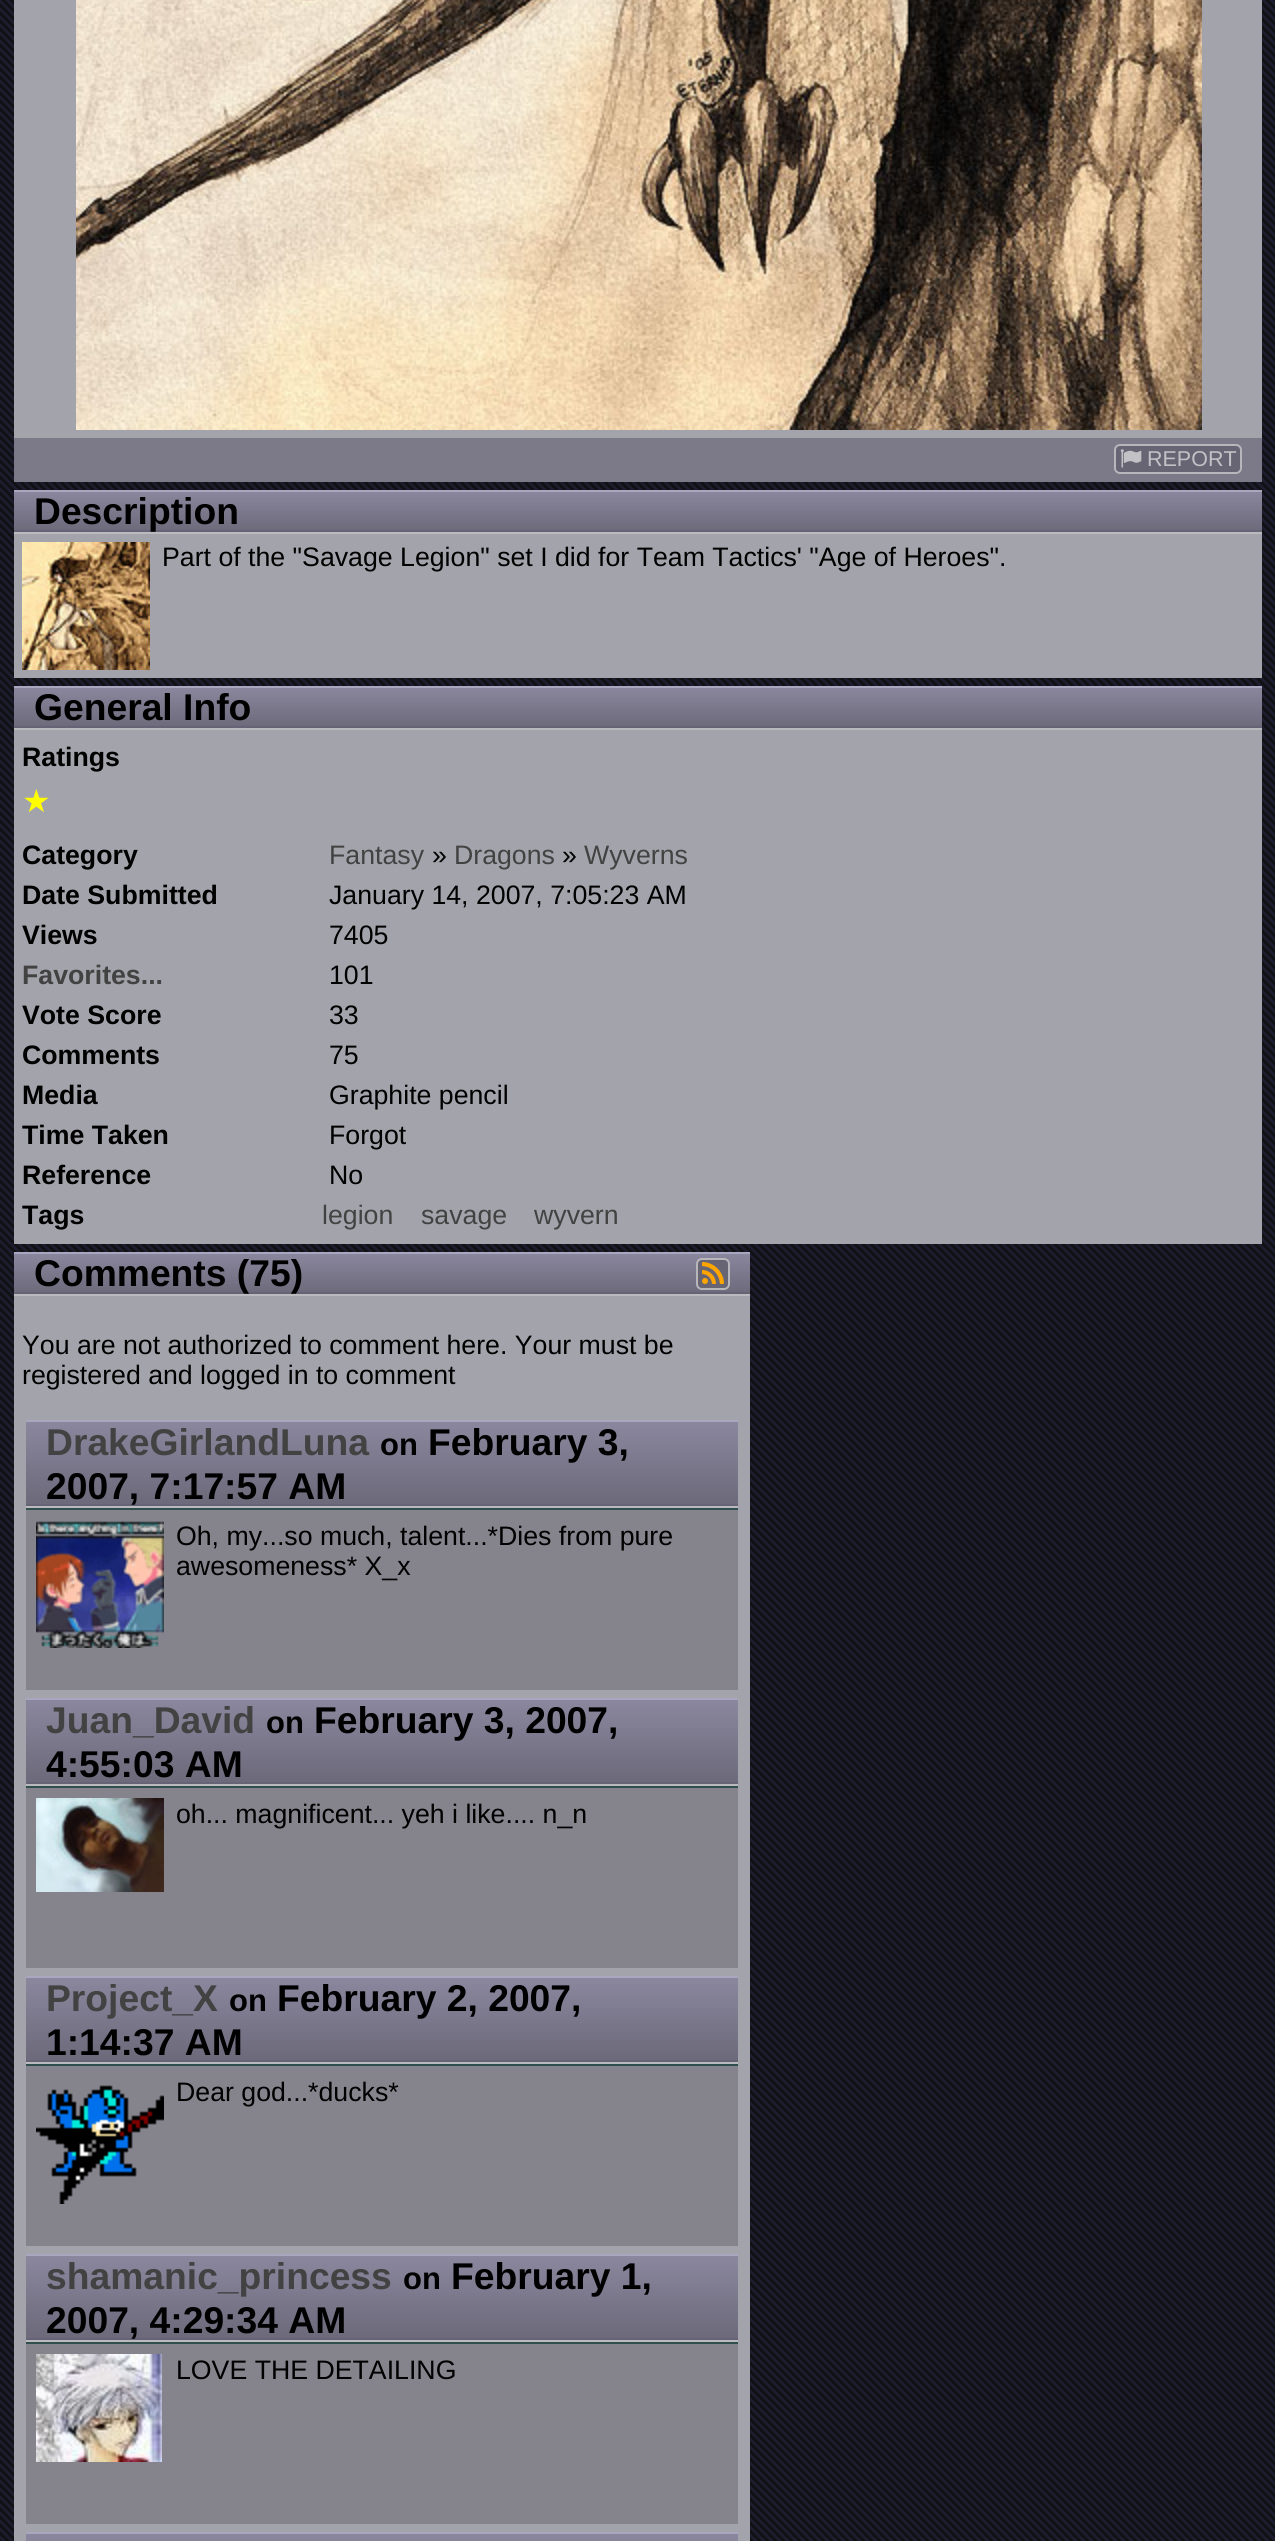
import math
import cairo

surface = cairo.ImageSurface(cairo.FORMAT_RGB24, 1275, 2541)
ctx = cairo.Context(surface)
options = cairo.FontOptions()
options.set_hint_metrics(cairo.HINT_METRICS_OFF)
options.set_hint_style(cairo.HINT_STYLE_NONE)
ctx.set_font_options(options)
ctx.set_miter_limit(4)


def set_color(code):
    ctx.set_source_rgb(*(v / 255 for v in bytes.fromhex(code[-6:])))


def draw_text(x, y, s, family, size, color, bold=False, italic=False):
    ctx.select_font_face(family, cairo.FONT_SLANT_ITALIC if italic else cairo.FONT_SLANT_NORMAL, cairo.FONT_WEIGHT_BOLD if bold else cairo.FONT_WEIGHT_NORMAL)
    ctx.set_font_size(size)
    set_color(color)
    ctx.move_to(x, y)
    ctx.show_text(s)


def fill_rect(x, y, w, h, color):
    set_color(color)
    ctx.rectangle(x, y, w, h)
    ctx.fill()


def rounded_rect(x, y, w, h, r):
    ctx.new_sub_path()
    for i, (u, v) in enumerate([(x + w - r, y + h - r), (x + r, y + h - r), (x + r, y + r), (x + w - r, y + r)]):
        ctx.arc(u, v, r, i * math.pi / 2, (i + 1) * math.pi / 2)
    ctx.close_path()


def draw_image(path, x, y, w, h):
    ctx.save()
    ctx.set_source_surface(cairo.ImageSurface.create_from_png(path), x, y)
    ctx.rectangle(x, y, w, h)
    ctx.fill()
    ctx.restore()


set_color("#ffffff")
ctx.paint()
draw_image("assets/img1.png", 0, 0, 1275, 2541)
fill_rect(14, 0, 1248, 438, "#a3a3ab")
draw_image("assets/img2.png", 76, 0, 1126, 430)
fill_rect(14, 438, 1248, 44, "#7c7a89")
set_color("#676573")
rounded_rect(1115, 445, 126, 28, 5)
ctx.fill_preserve()
set_color("#b7b6bb")
ctx.stroke()
draw_image("assets/img3.png", 1120, 449, 22, 19)
draw_text(1147, 466, "REPORT", "Liberation Sans", 21.5, "#c2c1c6")
gradient = cairo.LinearGradient(638, 490, 638, 534)
gradient.add_color_stop_rgba(0.01, 0.545, 0.529, 0.62, 1)
gradient.add_color_stop_rgba(1, 0.42, 0.408, 0.475, 1)
ctx.set_source(gradient)
ctx.rectangle(14, 492, 1248, 38)
ctx.fill()
fill_rect(14, 490, 1248, 2, "#aaa6c0")
fill_rect(14, 530, 1248, 2, "#666376")
fill_rect(14, 532, 1248, 2, "#bab9be")
draw_text(34, 524, "Description", "Liberation Sans", 37.25, "#000000", bold=True)
fill_rect(14, 534, 1248, 144, "#a3a3ab")
draw_image("assets/img4.png", 22, 542, 128, 128)
draw_text(162, 566, "Part of the \"Savage Legion\" set I did for Team Tactics' \"Age of Heroes\".", "Liberation Sans", 26.7, "#000000")
gradient = cairo.LinearGradient(638, 686, 638, 730)
gradient.add_color_stop_rgba(0.01, 0.545, 0.529, 0.62, 1)
gradient.add_color_stop_rgba(1, 0.42, 0.408, 0.475, 1)
ctx.set_source(gradient)
ctx.rectangle(14, 688, 1248, 38)
ctx.fill()
fill_rect(14, 686, 1248, 2, "#aaa6c0")
fill_rect(14, 726, 1248, 2, "#666376")
fill_rect(14, 728, 1248, 2, "#bab9be")
draw_text(34, 720, "General Info", "Liberation Sans", 37.25, "#000000", bold=True)
fill_rect(14, 730, 1248, 514, "#a3a3ab")
draw_text(22, 766, "Ratings", "Liberation Sans", 26.7, "#000000", bold=True)
draw_text(22, 812, "★", "DejaVu Sans", 32, "#ffff00")
draw_text(22, 864, "Category", "Liberation Sans", 26.7, "#000000", bold=True)
draw_text(329, 864, "Fantasy", "Liberation Sans", 26.7, "#424242")
draw_text(432, 864, "»", "Liberation Sans", 26.7, "#000000")
draw_text(454, 864, "Dragons", "Liberation Sans", 26.7, "#424242")
draw_text(562, 864, "»", "Liberation Sans", 26.7, "#000000")
draw_text(584, 864, "Wyverns", "Liberation Sans", 26.7, "#424242")
draw_text(22, 904, "Date Submitted", "Liberation Sans", 26.7, "#000000", bold=True)
draw_text(329, 904, "January 14, 2007, 7:05:23 AM", "Liberation Sans", 26.7, "#000000")
draw_text(22, 944, "Views", "Liberation Sans", 26.7, "#000000", bold=True)
draw_text(329, 944, "7405", "Liberation Sans", 26.7, "#000000")
draw_text(22, 984, "Favorites...", "Liberation Sans", 26.7, "#424242", bold=True)
draw_text(329, 984, "101", "Liberation Sans", 26.7, "#000000")
draw_text(22, 1024, "Vote Score", "Liberation Sans", 26.7, "#000000", bold=True)
draw_text(329, 1024, "33", "Liberation Sans", 26.7, "#000000")
draw_text(22, 1064, "Comments", "Liberation Sans", 26.7, "#000000", bold=True)
draw_text(329, 1064, "75", "Liberation Sans", 26.7, "#000000")
draw_text(22, 1104, "Media", "Liberation Sans", 26.7, "#000000", bold=True)
draw_text(329, 1104, "Graphite pencil", "Liberation Sans", 26.7, "#000000")
draw_text(22, 1144, "Time Taken", "Liberation Sans", 26.7, "#000000", bold=True)
draw_text(329, 1144, "Forgot", "Liberation Sans", 26.7, "#000000")
draw_text(22, 1184, "Reference", "Liberation Sans", 26.7, "#000000", bold=True)
draw_text(329, 1184, "No", "Liberation Sans", 26.7, "#000000")
draw_text(22, 1224, "Tags", "Liberation Sans", 26.7, "#000000", bold=True)
draw_text(322, 1224, "legion", "Liberation Sans", 26.7, "#424242")
draw_text(421, 1224, "savage", "Liberation Sans", 26.7, "#424242")
draw_text(534, 1224, "wyvern", "Liberation Sans", 26.7, "#424242")
gradient = cairo.LinearGradient(382, 1252, 382, 1296)
gradient.add_color_stop_rgba(0.01, 0.545, 0.529, 0.62, 1)
gradient.add_color_stop_rgba(1, 0.42, 0.408, 0.475, 1)
ctx.set_source(gradient)
ctx.rectangle(14, 1254, 736, 38)
ctx.fill()
fill_rect(14, 1252, 736, 2, "#aaa6c0")
fill_rect(14, 1292, 736, 2, "#666376")
fill_rect(14, 1294, 736, 2, "#bab9be")
draw_text(34, 1286, "Comments (75)", "Liberation Sans", 37.25, "#000000", bold=True)
set_color("#676573")
rounded_rect(697, 1259, 32, 30, 5)
ctx.fill_preserve()
set_color("#b7b6bb")
ctx.stroke()
draw_image("assets/img5.png", 702, 1262, 22, 22)
fill_rect(14, 1296, 736, 1245, "#a3a3ab")
draw_text(22, 1354, "You are not authorized to comment here. Your must be", "Liberation Sans", 26.7, "#000000")
draw_text(22, 1384, "registered and logged in to comment", "Liberation Sans", 26.7, "#000000")
gradient = cairo.LinearGradient(382, 1420, 382, 1508)
gradient.add_color_stop_rgba(0.01, 0.545, 0.529, 0.62, 1)
gradient.add_color_stop_rgba(1, 0.42, 0.408, 0.475, 1)
ctx.set_source(gradient)
ctx.rectangle(26, 1422, 712, 82)
ctx.fill()
fill_rect(26, 1420, 712, 2, "#aaa6c0")
fill_rect(26, 1504, 712, 2, "#666376")
fill_rect(26, 1506, 712, 2, "#bab9be")
draw_text(46, 1455, "DrakeGirlandLuna", "Liberation Sans", 37.25, "#424242", bold=True)
draw_text(380, 1455, "on", "Liberation Sans", 31, "#000000", bold=True)
draw_text(428, 1455, "February 3,", "Liberation Sans", 37.25, "#000000", bold=True)
draw_text(46, 1499, "2007, 7:17:57 AM", "Liberation Sans", 37.25, "#000000", bold=True)
fill_rect(26, 1510, 712, 180, "#85848d")
fill_rect(26, 1508, 712, 2, "#2f4f4f")
draw_image("assets/img6.png", 36, 1521, 128, 127)
draw_text(176, 1545, "Oh, my...so much, talent...*Dies from pure", "Liberation Sans", 26.7, "#000000")
draw_text(176, 1575, "awesomeness* X_x", "Liberation Sans", 26.7, "#000000")
gradient = cairo.LinearGradient(382, 1698, 382, 1786)
gradient.add_color_stop_rgba(0.01, 0.545, 0.529, 0.62, 1)
gradient.add_color_stop_rgba(1, 0.42, 0.408, 0.475, 1)
ctx.set_source(gradient)
ctx.rectangle(26, 1700, 712, 82)
ctx.fill()
fill_rect(26, 1698, 712, 2, "#aaa6c0")
fill_rect(26, 1782, 712, 2, "#666376")
fill_rect(26, 1784, 712, 2, "#bab9be")
draw_text(46, 1733, "Juan_David", "Liberation Sans", 37.25, "#424242", bold=True)
draw_text(266, 1733, "on", "Liberation Sans", 31, "#000000", bold=True)
draw_text(314, 1733, "February 3, 2007,", "Liberation Sans", 37.25, "#000000", bold=True)
draw_text(46, 1777, "4:55:03 AM", "Liberation Sans", 37.25, "#000000", bold=True)
fill_rect(26, 1788, 712, 180, "#85848d")
fill_rect(26, 1786, 712, 2, "#2f4f4f")
draw_image("assets/img7.png", 36, 1798, 128, 94)
draw_text(176, 1823, "oh... magnificent... yeh i like.... n_n", "Liberation Sans", 26.7, "#000000")
gradient = cairo.LinearGradient(382, 1976, 382, 2064)
gradient.add_color_stop_rgba(0.01, 0.545, 0.529, 0.62, 1)
gradient.add_color_stop_rgba(1, 0.42, 0.408, 0.475, 1)
ctx.set_source(gradient)
ctx.rectangle(26, 1978, 712, 82)
ctx.fill()
fill_rect(26, 1976, 712, 2, "#aaa6c0")
fill_rect(26, 2060, 712, 2, "#666376")
fill_rect(26, 2062, 712, 2, "#bab9be")
draw_text(46, 2011, "Project_X", "Liberation Sans", 37.25, "#424242", bold=True)
draw_text(229, 2011, "on", "Liberation Sans", 31, "#000000", bold=True)
draw_text(277, 2011, "February 2, 2007,", "Liberation Sans", 37.25, "#000000", bold=True)
draw_text(46, 2055, "1:14:37 AM", "Liberation Sans", 37.25, "#000000", bold=True)
fill_rect(26, 2066, 712, 180, "#85848d")
fill_rect(26, 2064, 712, 2, "#2f4f4f")
draw_image("assets/img8.png", 36, 2085, 128, 119)
draw_text(176, 2101, "Dear god...*ducks*", "Liberation Sans", 26.7, "#000000")
gradient = cairo.LinearGradient(382, 2254, 382, 2342)
gradient.add_color_stop_rgba(0.01, 0.545, 0.529, 0.62, 1)
gradient.add_color_stop_rgba(1, 0.42, 0.408, 0.475, 1)
ctx.set_source(gradient)
ctx.rectangle(26, 2256, 712, 82)
ctx.fill()
fill_rect(26, 2254, 712, 2, "#aaa6c0")
fill_rect(26, 2338, 712, 2, "#666376")
fill_rect(26, 2340, 712, 2, "#bab9be")
draw_text(46, 2289, "shamanic_princess", "Liberation Sans", 37.25, "#424242", bold=True)
draw_text(403, 2289, "on", "Liberation Sans", 31, "#000000", bold=True)
draw_text(451, 2289, "February 1,", "Liberation Sans", 37.25, "#000000", bold=True)
draw_text(46, 2333, "2007, 4:29:34 AM", "Liberation Sans", 37.25, "#000000", bold=True)
fill_rect(26, 2344, 712, 180, "#85848d")
fill_rect(26, 2342, 712, 2, "#2f4f4f")
draw_image("assets/img9.png", 36, 2354, 126, 108)
draw_text(176, 2379, "LOVE THE DETAILING", "Liberation Sans", 26.7, "#000000")
gradient = cairo.LinearGradient(382, 2532, 382, 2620)
gradient.add_color_stop_rgba(0.01, 0.545, 0.529, 0.62, 1)
gradient.add_color_stop_rgba(1, 0.42, 0.408, 0.475, 1)
ctx.set_source(gradient)
ctx.rectangle(26, 2534, 712, 7)
ctx.fill()
fill_rect(26, 2532, 712, 2, "#aaa6c0")
surface.write_to_png("output.png")
